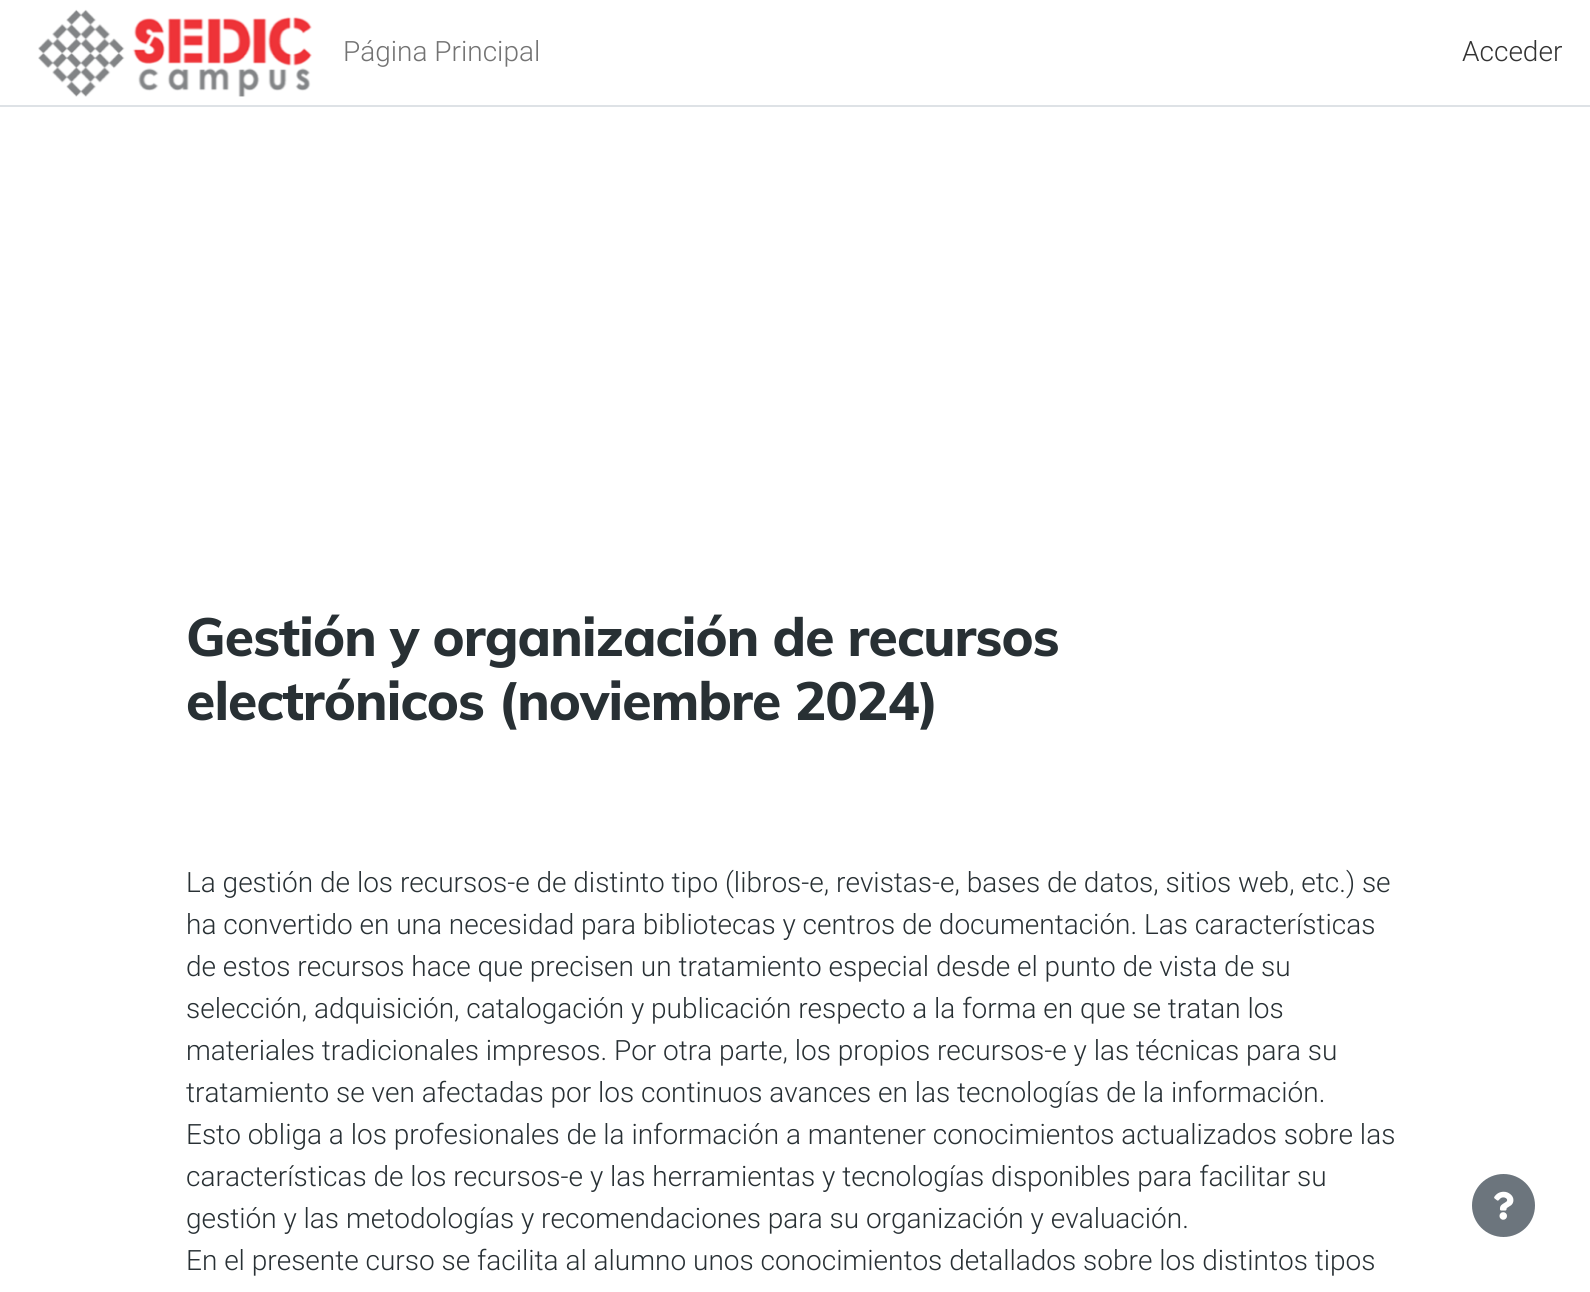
import math
import cairo

surface = cairo.ImageSurface(cairo.FORMAT_RGB24, 1590, 1292)
ctx = cairo.Context(surface)
options = cairo.FontOptions()
options.set_hint_metrics(cairo.HINT_METRICS_OFF)
options.set_hint_style(cairo.HINT_STYLE_NONE)
ctx.set_font_options(options)
ctx.set_miter_limit(4)


def set_color(code):
    ctx.set_source_rgb(*(v / 255 for v in bytes.fromhex(code[-6:])))


def draw_text(x, y, s, family, size, color, bold=False, italic=False):
    ctx.select_font_face(family, cairo.FONT_SLANT_ITALIC if italic else cairo.FONT_SLANT_NORMAL, cairo.FONT_WEIGHT_BOLD if bold else cairo.FONT_WEIGHT_NORMAL)
    ctx.set_font_size(size)
    set_color(color)
    ctx.move_to(x, y)
    ctx.show_text(s)


def draw_spaced(x, y, s, letter, word):
    ctx.move_to(x, y)
    for ch in s:
        ctx.show_text(ch)
        ctx.rel_move_to(letter + word * (ch == ' '), 0)


def fill_rect(x, y, w, h, color):
    set_color(color)
    ctx.rectangle(x, y, w, h)
    ctx.fill()


def draw_image(path, x, y, w, h):
    ctx.save()
    ctx.set_source_surface(cairo.ImageSurface.create_from_png(path), x, y)
    ctx.rectangle(x, y, w, h)
    ctx.fill()
    ctx.restore()


set_color("#ffffff")
ctx.paint()
fill_rect(0, 105, 1590, 2, "#dee2e6")
draw_image("assets/img1.png", 38, 9, 274, 88)
draw_text(343, 61, "Página Principal", "Roboto Light", 28, "#737373")
draw_text(1462, 61, "Acceder", "Roboto Light", 28, "#333333")
ctx.select_font_face("Muli ExtraBold")
ctx.set_font_size(53.25)
set_color("#283034")
draw_spaced(186, 656, "Gestión y organización de recursos", -0.9, 0)
draw_spaced(186, 720, "electrónicos (noviembre 2024)", -0.9, 0)
draw_text(186, 892, "La gestión de los recursos-e de distinto tipo (libros-e, revistas-e, bases de datos, sitios web, etc.) se", "Roboto Light", 28, "#283034")
draw_text(186, 934, "ha convertido en una necesidad para bibliotecas y centros de documentación. Las características", "Roboto Light", 28, "#283034")
draw_text(186, 976, "de estos recursos hace que precisen un tratamiento especial desde el punto de vista de su", "Roboto Light", 28, "#283034")
draw_text(186, 1018, "selección, adquisición, catalogación y publicación respecto a la forma en que se tratan los", "Roboto Light", 28, "#283034")
draw_text(186, 1060, "materiales tradicionales impresos. Por otra parte, los propios recursos-e y las técnicas para su", "Roboto Light", 28, "#283034")
draw_text(186, 1102, "tratamiento se ven afectadas por los continuos avances en las tecnologías de la información.", "Roboto Light", 28, "#283034")
draw_text(186, 1144, "Esto obliga a los profesionales de la información a mantener conocimientos actualizados sobre las", "Roboto Light", 28, "#283034")
draw_text(186, 1186, "características de los recursos-e y las herramientas y tecnologías disponibles para facilitar su", "Roboto Light", 28, "#283034")
draw_text(186, 1228, "gestión y las metodologías y recomendaciones para su organización y evaluación.", "Roboto Light", 28, "#283034")
draw_text(186, 1270, "En el presente curso se facilita al alumno unos conocimientos detallados sobre los distintos tipos", "Roboto Light", 28, "#283034")
set_color("#6c757d")
ctx.new_path()
ctx.arc(1503.5, 1205.5, 31.5, 0, 2 * math.pi)
ctx.fill()
draw_image("assets/img2.png", 1494, 1191, 20, 29)
surface.write_to_png("output.png")
